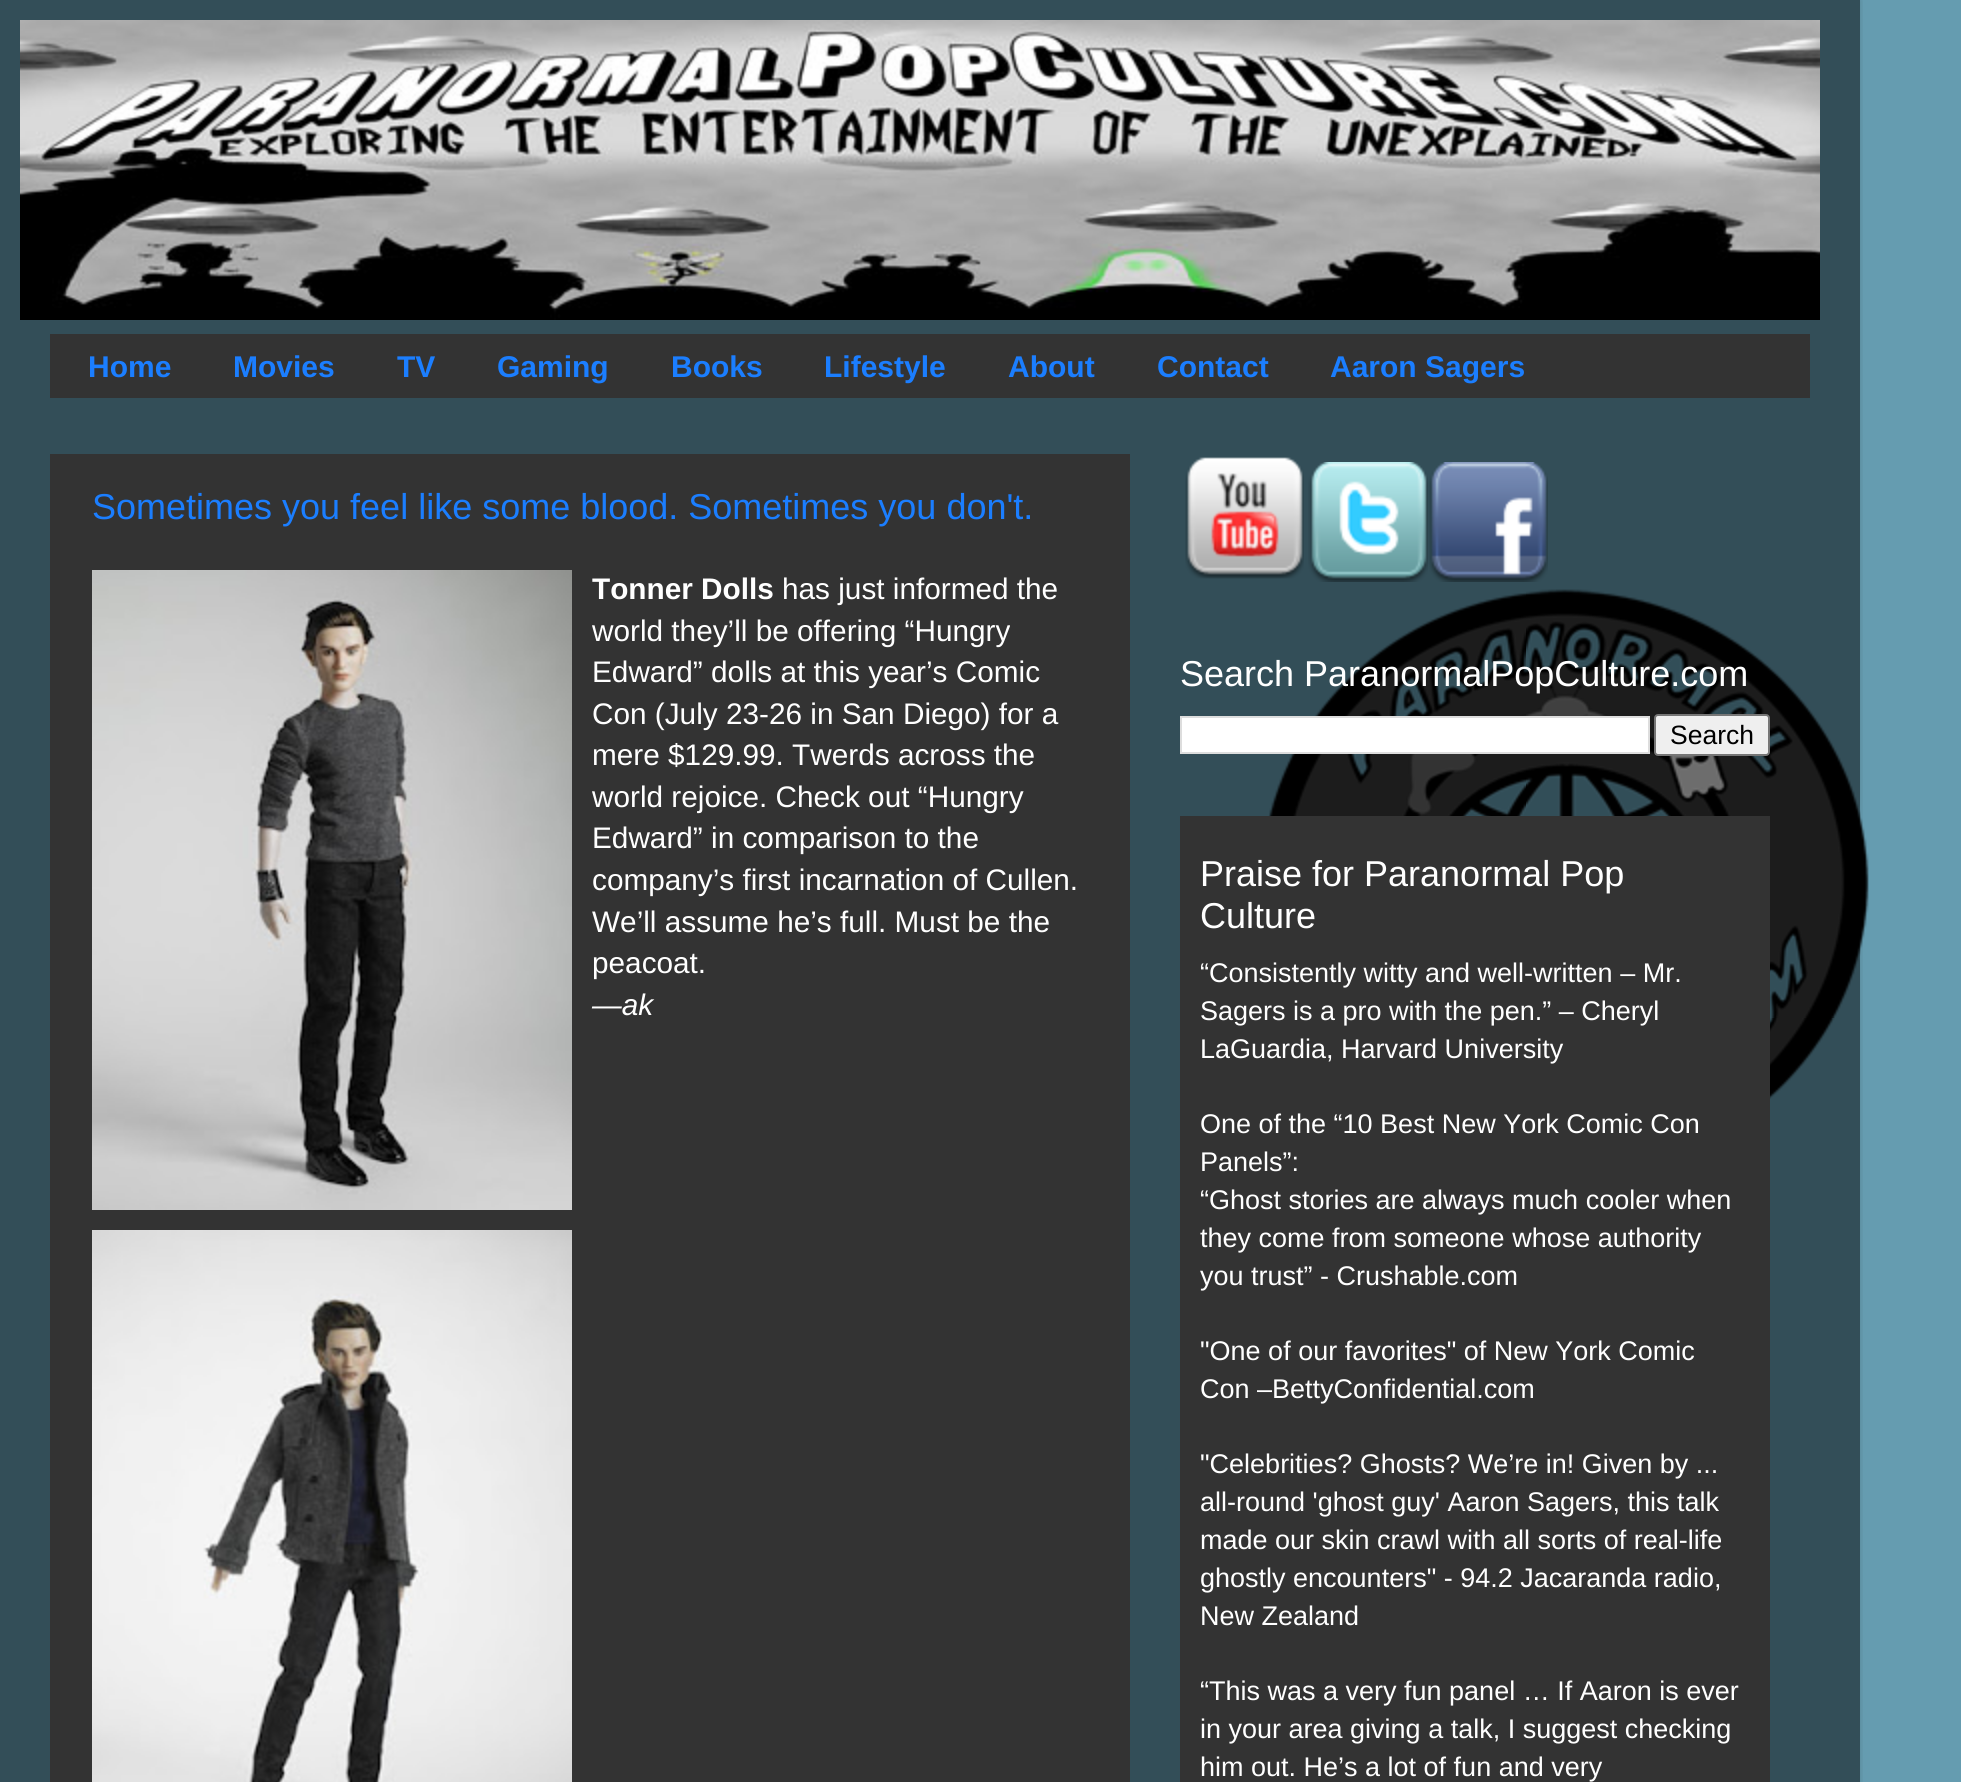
import math
import cairo

surface = cairo.ImageSurface(cairo.FORMAT_RGB24, 1961, 1782)
ctx = cairo.Context(surface)
options = cairo.FontOptions()
options.set_hint_metrics(cairo.HINT_METRICS_OFF)
options.set_hint_style(cairo.HINT_STYLE_NONE)
ctx.set_font_options(options)
ctx.set_miter_limit(4)


def set_color(code):
    ctx.set_source_rgb(*(v / 255 for v in bytes.fromhex(code[-6:])))


def draw_text(x, y, s, family, size, color, bold=False, italic=False):
    ctx.select_font_face(family, cairo.FONT_SLANT_ITALIC if italic else cairo.FONT_SLANT_NORMAL, cairo.FONT_WEIGHT_BOLD if bold else cairo.FONT_WEIGHT_NORMAL)
    ctx.set_font_size(size)
    set_color(color)
    ctx.move_to(x, y)
    ctx.show_text(s)


def fill_rect(x, y, w, h, color):
    set_color(color)
    ctx.rectangle(x, y, w, h)
    ctx.fill()


def rounded_rect(x, y, w, h, r):
    ctx.new_sub_path()
    for i, (u, v) in enumerate([(x + w - r, y + h - r), (x + r, y + h - r), (x + r, y + r), (x + w - r, y + r)]):
        ctx.arc(u, v, r, i * math.pi / 2, (i + 1) * math.pi / 2)
    ctx.close_path()


def draw_shadow(x, y, w, h, r, blur, alpha):
    ctx.push_group_with_content(cairo.CONTENT_ALPHA)
    ctx.set_operator(cairo.OPERATOR_SOURCE)
    for i in range(15, -16, -2):
        e = blur * i / 6
        if min(w, h) + 2 * e > 0:
            ctx.set_source_rgba(0, 0, 0, alpha * math.erfc((i - 1) / 8.5) / 2)
            rounded_rect(x - e, y - e, w + 2 * e, h + 2 * e, max(0, min(r + e + blur * .6, min(w, h) / 2 + e)))
            ctx.fill()
    ctx.mask(ctx.pop_group())


def draw_image(path, x, y, w, h):
    ctx.save()
    ctx.set_source_surface(cairo.ImageSurface.create_from_png(path), x, y)
    ctx.rectangle(x, y, w, h)
    ctx.fill()
    ctx.restore()


set_color("#659cb0")
ctx.paint()
fill_rect(0, 0, 1860, 1782, "#334e58")
draw_image("assets/img1.png", 1268, 589, 601, 510)
ctx.save()
ctx.rectangle(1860, 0, 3, 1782)
ctx.clip()
set_color("#000000")
draw_shadow(0, 0, 1860, 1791, 0, 3, 0.15)
ctx.restore()
draw_image("assets/img2.png", 20, 20, 1800, 300)
fill_rect(50, 334, 1760, 64, "#333333")
draw_text(88, 377, "Home", "Liberation Sans", 30, "#1b7eff", bold=True)
draw_text(233, 377, "Movies", "Liberation Sans", 30, "#1b7eff", bold=True)
draw_text(397, 377, "TV", "Liberation Sans", 30, "#1b7eff", bold=True)
draw_text(497, 377, "Gaming", "Liberation Sans", 30, "#1b7eff", bold=True)
draw_text(671, 377, "Books", "Liberation Sans", 30, "#1b7eff", bold=True)
draw_text(824, 377, "Lifestyle", "Liberation Sans", 30, "#1b7eff", bold=True)
draw_text(1008, 377, "About", "Liberation Sans", 30, "#1b7eff", bold=True)
draw_text(1157, 377, "Contact", "Liberation Sans", 30, "#1b7eff", bold=True)
draw_text(1330, 377, "Aaron Sagers", "Liberation Sans", 30, "#1b7eff", bold=True)
fill_rect(50, 454, 1080, 1328, "#333333")
draw_text(92, 519, "Sometimes you feel like some blood. Sometimes you don't.", "Liberation Sans", 36, "#1b7eff")
draw_image("assets/img3.png", 92, 570, 480, 640)
draw_text(592, 599, "Tonner Dolls", "Liberation Sans", 29.75, "#ffffff", bold=True)
draw_text(782, 599, "has just informed the", "Liberation Sans", 29.75, "#ffffff")
draw_text(592, 641, "world they’ll be offering “Hungry", "Liberation Sans", 29.75, "#ffffff")
draw_text(592, 682, "Edward” dolls at this year’s Comic", "Liberation Sans", 29.75, "#ffffff")
draw_text(592, 724, "Con (July 23-26 in San Diego) for a", "Liberation Sans", 29.75, "#ffffff")
draw_text(592, 765, "mere $129.99. Twerds across the", "Liberation Sans", 29.75, "#ffffff")
draw_text(592, 807, "world rejoice. Check out “Hungry", "Liberation Sans", 29.75, "#ffffff")
draw_text(592, 848, "Edward” in comparison to the", "Liberation Sans", 29.75, "#ffffff")
draw_text(592, 890, "company’s first incarnation of Cullen.", "Liberation Sans", 29.75, "#ffffff")
draw_text(592, 932, "We’ll assume he’s full. Must be the", "Liberation Sans", 29.75, "#ffffff")
draw_text(592, 973, "peacoat.", "Liberation Sans", 29.75, "#ffffff")
draw_image("assets/img4.png", 92, 1230, 480, 552)
draw_text(592, 1015, "—ak", "Liberation Sans", 29.75, "#ffffff", italic=True)
draw_image("assets/img5.png", 1185, 457, 119, 122)
draw_image("assets/img6.png", 1308, 462, 120, 120)
draw_image("assets/img7.png", 1428, 462, 120, 120)
draw_text(1180, 686, "Search ParanormalPopCulture.com", "Liberation Sans", 36, "#ffffff")
ctx.rectangle(1181, 717, 468, 36)
ctx.fill_preserve()
set_color("#dddddd")
ctx.stroke()
set_color("#efefef")
rounded_rect(1655, 715, 114, 40, 3)
ctx.fill_preserve()
set_color("#767676")
ctx.stroke()
draw_text(1670, 744, "Search", "Liberation Sans", 26.5, "#000000")
fill_rect(1180, 816, 590, 966, "#333333")
draw_text(1200, 886, "Praise for Paranormal Pop", "Liberation Sans", 36, "#ffffff")
draw_text(1200, 928, "Culture", "Liberation Sans", 36, "#ffffff")
draw_text(1200, 982, "“Consistently witty and well-written – Mr.", "Liberation Sans", 27, "#ffffff")
draw_text(1200, 1020, "Sagers is a pro with the pen.” – Cheryl", "Liberation Sans", 27, "#ffffff")
draw_text(1200, 1058, "LaGuardia, Harvard University", "Liberation Sans", 27, "#ffffff")
draw_text(1200, 1133, "One of the “10 Best New York Comic Con", "Liberation Sans", 27, "#ffffff")
draw_text(1200, 1171, "Panels”:", "Liberation Sans", 27, "#ffffff")
draw_text(1200, 1209, "“Ghost stories are always much cooler when", "Liberation Sans", 27, "#ffffff")
draw_text(1200, 1247, "they come from someone whose authority", "Liberation Sans", 27, "#ffffff")
draw_text(1200, 1285, "you trust” - Crushable.com", "Liberation Sans", 27, "#ffffff")
draw_text(1200, 1360, "\"One of our favorites\" of New York Comic", "Liberation Sans", 27, "#ffffff")
draw_text(1200, 1398, "Con –BettyConfidential.com", "Liberation Sans", 27, "#ffffff")
draw_text(1200, 1473, "\"Celebrities? Ghosts? We’re in! Given by ...", "Liberation Sans", 27, "#ffffff")
draw_text(1200, 1511, "all-round 'ghost guy' Aaron Sagers, this talk", "Liberation Sans", 27, "#ffffff")
draw_text(1200, 1549, "made our skin crawl with all sorts of real-life", "Liberation Sans", 27, "#ffffff")
draw_text(1200, 1587, "ghostly encounters\" - 94.2 Jacaranda radio,", "Liberation Sans", 27, "#ffffff")
draw_text(1200, 1625, "New Zealand", "Liberation Sans", 27, "#ffffff")
draw_text(1200, 1700, "“This was a very fun panel … If Aaron is ever", "Liberation Sans", 27, "#ffffff")
draw_text(1200, 1738, "in your area giving a talk, I suggest checking", "Liberation Sans", 27, "#ffffff")
draw_text(1200, 1776, "him out. He’s a lot of fun and very", "Liberation Sans", 27, "#ffffff")
surface.write_to_png("output.png")
